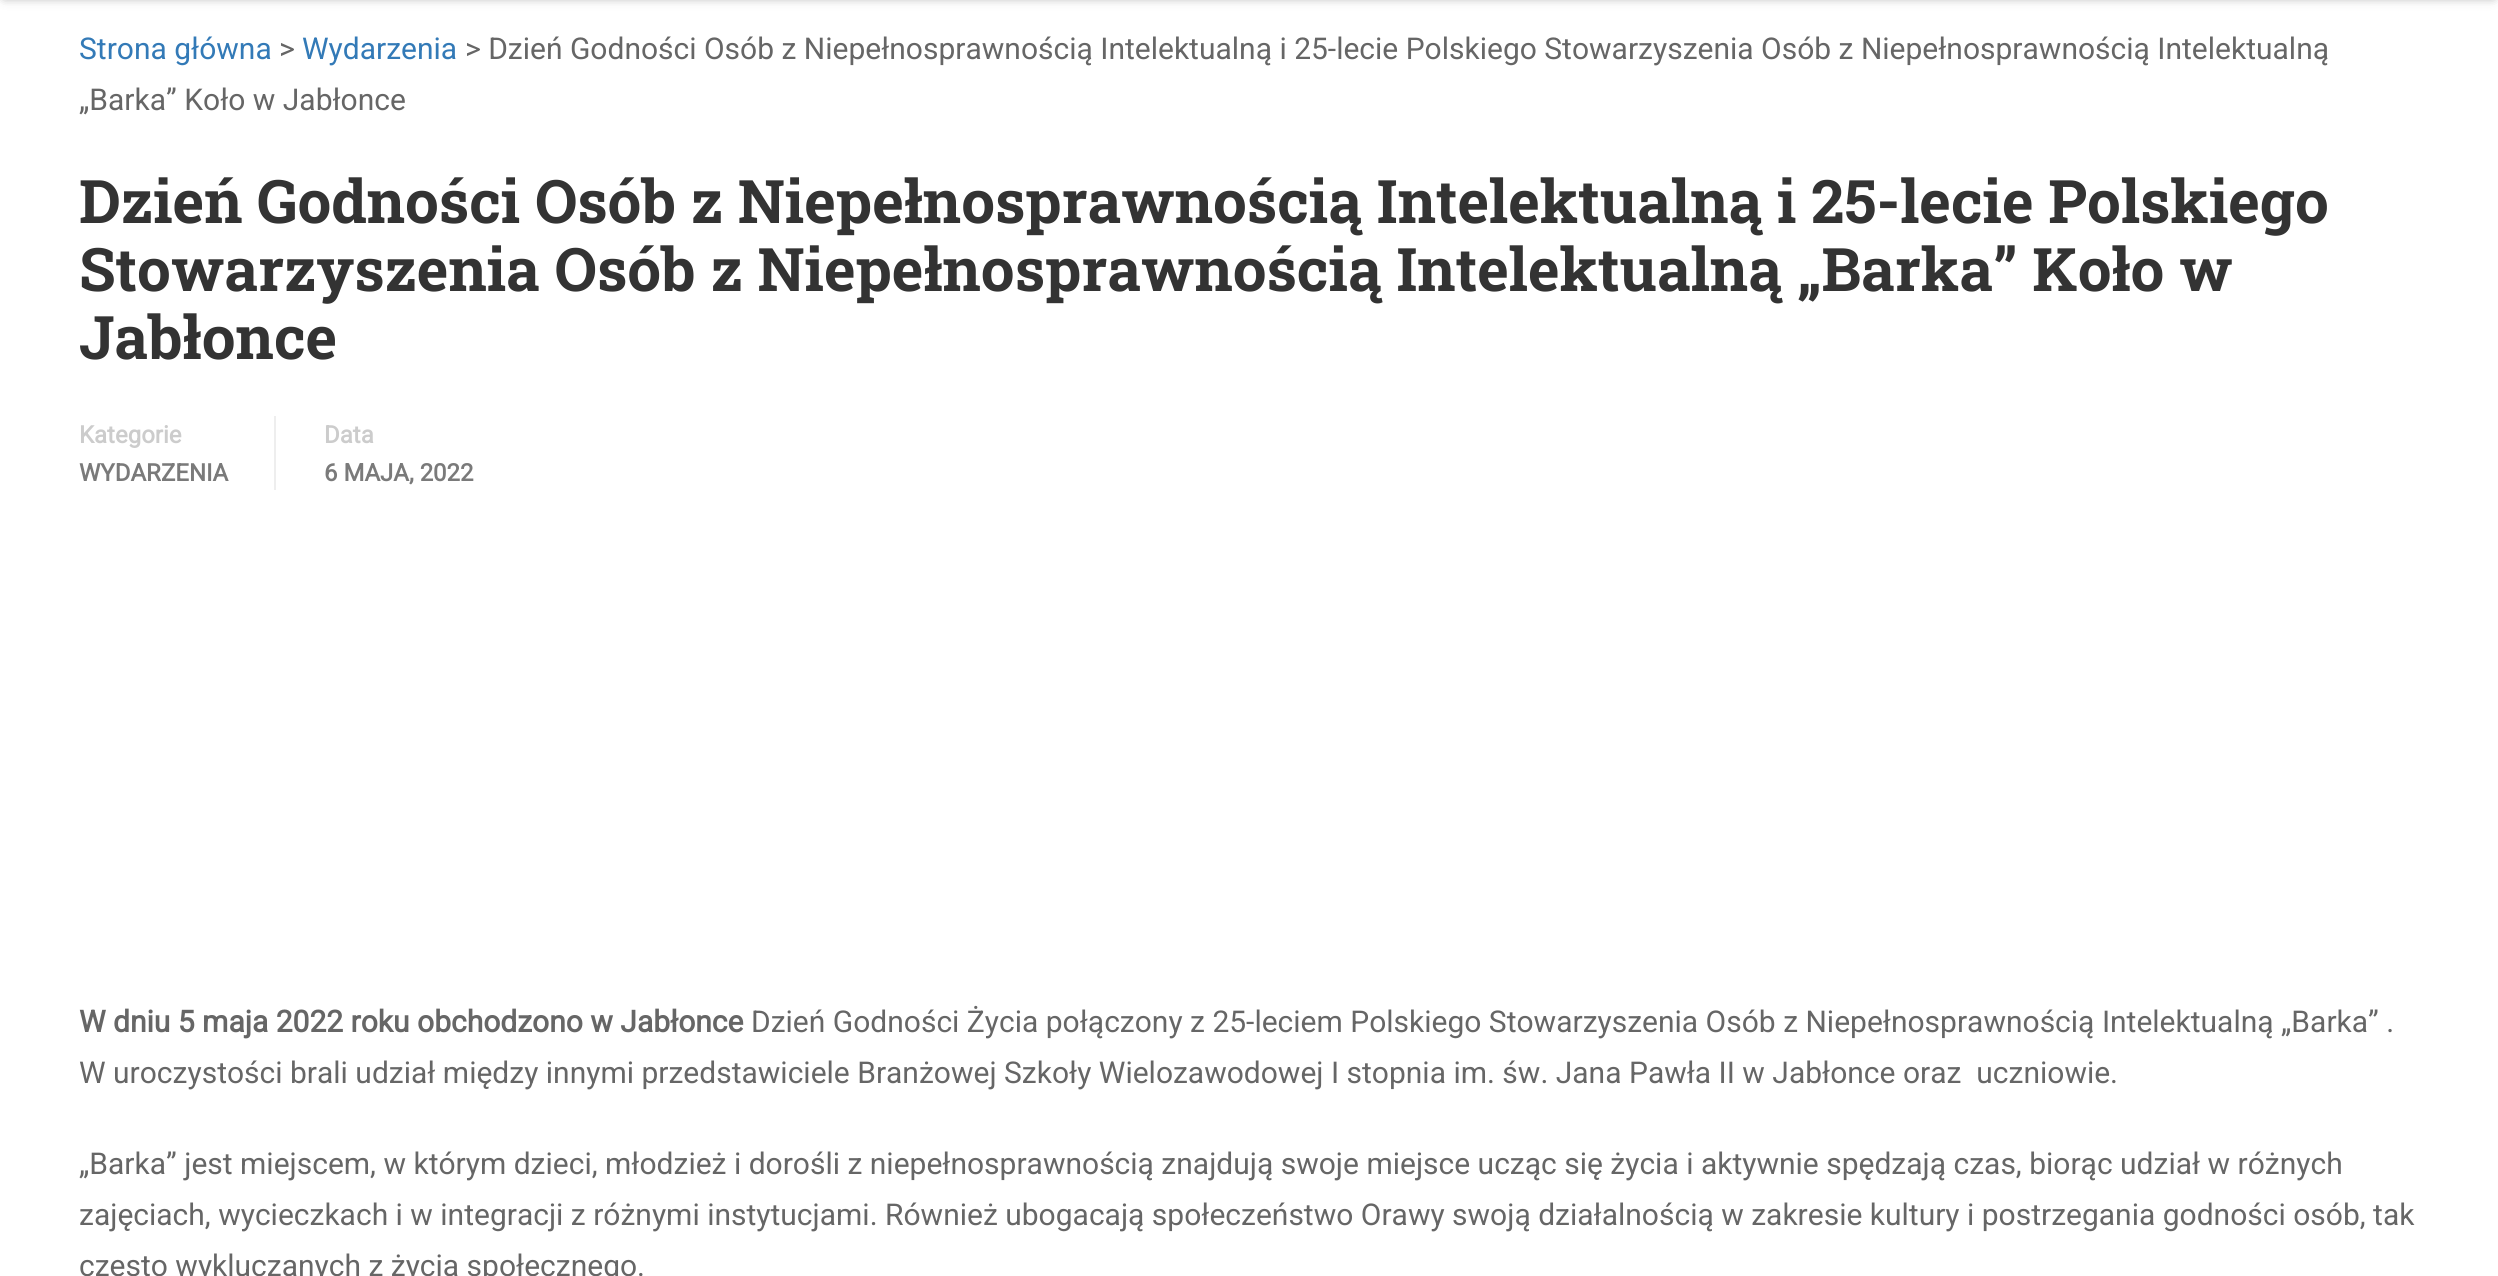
import math
import cairo

surface = cairo.ImageSurface(cairo.FORMAT_RGB24, 2498, 1276)
ctx = cairo.Context(surface)
options = cairo.FontOptions()
options.set_hint_metrics(cairo.HINT_METRICS_OFF)
options.set_hint_style(cairo.HINT_STYLE_NONE)
ctx.set_font_options(options)
ctx.set_miter_limit(4)


def set_color(code):
    ctx.set_source_rgb(*(v / 255 for v in bytes.fromhex(code[-6:])))


def draw_text(x, y, s, family, size, color, bold=False, italic=False):
    ctx.select_font_face(family, cairo.FONT_SLANT_ITALIC if italic else cairo.FONT_SLANT_NORMAL, cairo.FONT_WEIGHT_BOLD if bold else cairo.FONT_WEIGHT_NORMAL)
    ctx.set_font_size(size)
    set_color(color)
    ctx.move_to(x, y)
    ctx.show_text(s)


def fill_rect(x, y, w, h, color):
    set_color(color)
    ctx.rectangle(x, y, w, h)
    ctx.fill()


def rounded_rect(x, y, w, h, r):
    ctx.new_sub_path()
    for i, (u, v) in enumerate([(x + w - r, y + h - r), (x + r, y + h - r), (x + r, y + r), (x + w - r, y + r)]):
        ctx.arc(u, v, r, i * math.pi / 2, (i + 1) * math.pi / 2)
    ctx.close_path()


def draw_shadow(x, y, w, h, r, blur, alpha):
    ctx.push_group_with_content(cairo.CONTENT_ALPHA)
    ctx.set_operator(cairo.OPERATOR_SOURCE)
    for i in range(15, -16, -2):
        e = blur * i / 6
        if min(w, h) + 2 * e > 0:
            ctx.set_source_rgba(0, 0, 0, alpha * math.erfc((i - 1) / 8.5) / 2)
            rounded_rect(x - e, y - e, w + 2 * e, h + 2 * e, max(0, min(r + e + blur * .6, min(w, h) / 2 + e)))
            ctx.fill()
    ctx.mask(ctx.pop_group())


set_color("#ffffff")
ctx.paint()
set_color("#2a2a2a")
draw_shadow(4, -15, 2490, 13, 0, 5, 0.4)
draw_text(79, 59, "Strona główna", "Roboto", 30, "#337ab7")
draw_text(279, 59, ">", "Roboto", 30, "#666666")
draw_text(302, 59, "Wydarzenia", "Roboto", 30, "#337ab7")
draw_text(465, 59, "> Dzień Godności Osób z Niepełnosprawnością Intelektualną i 25-lecie Polskiego Stowarzyszenia Osób z Niepełnosprawnością Intelektualną", "Roboto", 30, "#666666")
draw_text(79, 110, "„Barka” Koło w Jabłonce", "Roboto", 30, "#666666")
draw_text(79, 223, "Dzień Godności Osób z Niepełnosprawnością Intelektualną i 25-lecie Polskiego", "Roboto Slab", 60, "#333333", bold=True)
draw_text(79, 291, "Stowarzyszenia Osób z Niepełnosprawnością Intelektualną „Barka” Koło w", "Roboto Slab", 60, "#333333", bold=True)
draw_text(79, 359, "Jabłonce", "Roboto Slab", 60, "#333333", bold=True)
fill_rect(274, 416, 2, 74, "#eeeeee")
draw_text(79, 443, "Kategorie", "Roboto", 24, "#cccccc", bold=True)
draw_text(79, 481, "WYDARZENIA", "Roboto", 24, "#7a7a7a", bold=True)
draw_text(324, 443, "Data", "Roboto", 24, "#cccccc", bold=True)
draw_text(324, 481, "6 MAJA, 2022", "Roboto", 24, "#7a7a7a", bold=True)
draw_text(79, 1032, "W dniu 5 maja 2022 roku obchodzono w Jabłonce", "Roboto", 30, "#666666", bold=True)
draw_text(751, 1032, "Dzień Godności Życia połączony z 25-leciem Polskiego Stowarzyszenia Osób z Niepełnosprawnością Intelektualną „Barka” .", "Roboto", 30, "#666666")
draw_text(79, 1083, "W uroczystości brali udział między innymi przedstawiciele Branżowej Szkoły Wielozawodowej I stopnia im. św. Jana Pawła II w Jabłonce oraz  uczniowie.", "Roboto", 30, "#666666")
draw_text(79, 1174, "„Barka” jest miejscem, w którym dzieci, młodzież i dorośli z niepełnosprawnością znajdują swoje miejsce ucząc się życia i aktywnie spędzają czas, biorąc udział w różnych", "Roboto", 30, "#666666")
draw_text(79, 1225, "zajęciach, wycieczkach i w integracji z różnymi instytucjami. Również ubogacają społeczeństwo Orawy swoją działalnością w zakresie kultury i postrzegania godności osób, tak", "Roboto", 30, "#666666")
draw_text(79, 1276, "często wykluczanych z życia społecznego.", "Roboto", 30, "#666666")
surface.write_to_png("output.png")
